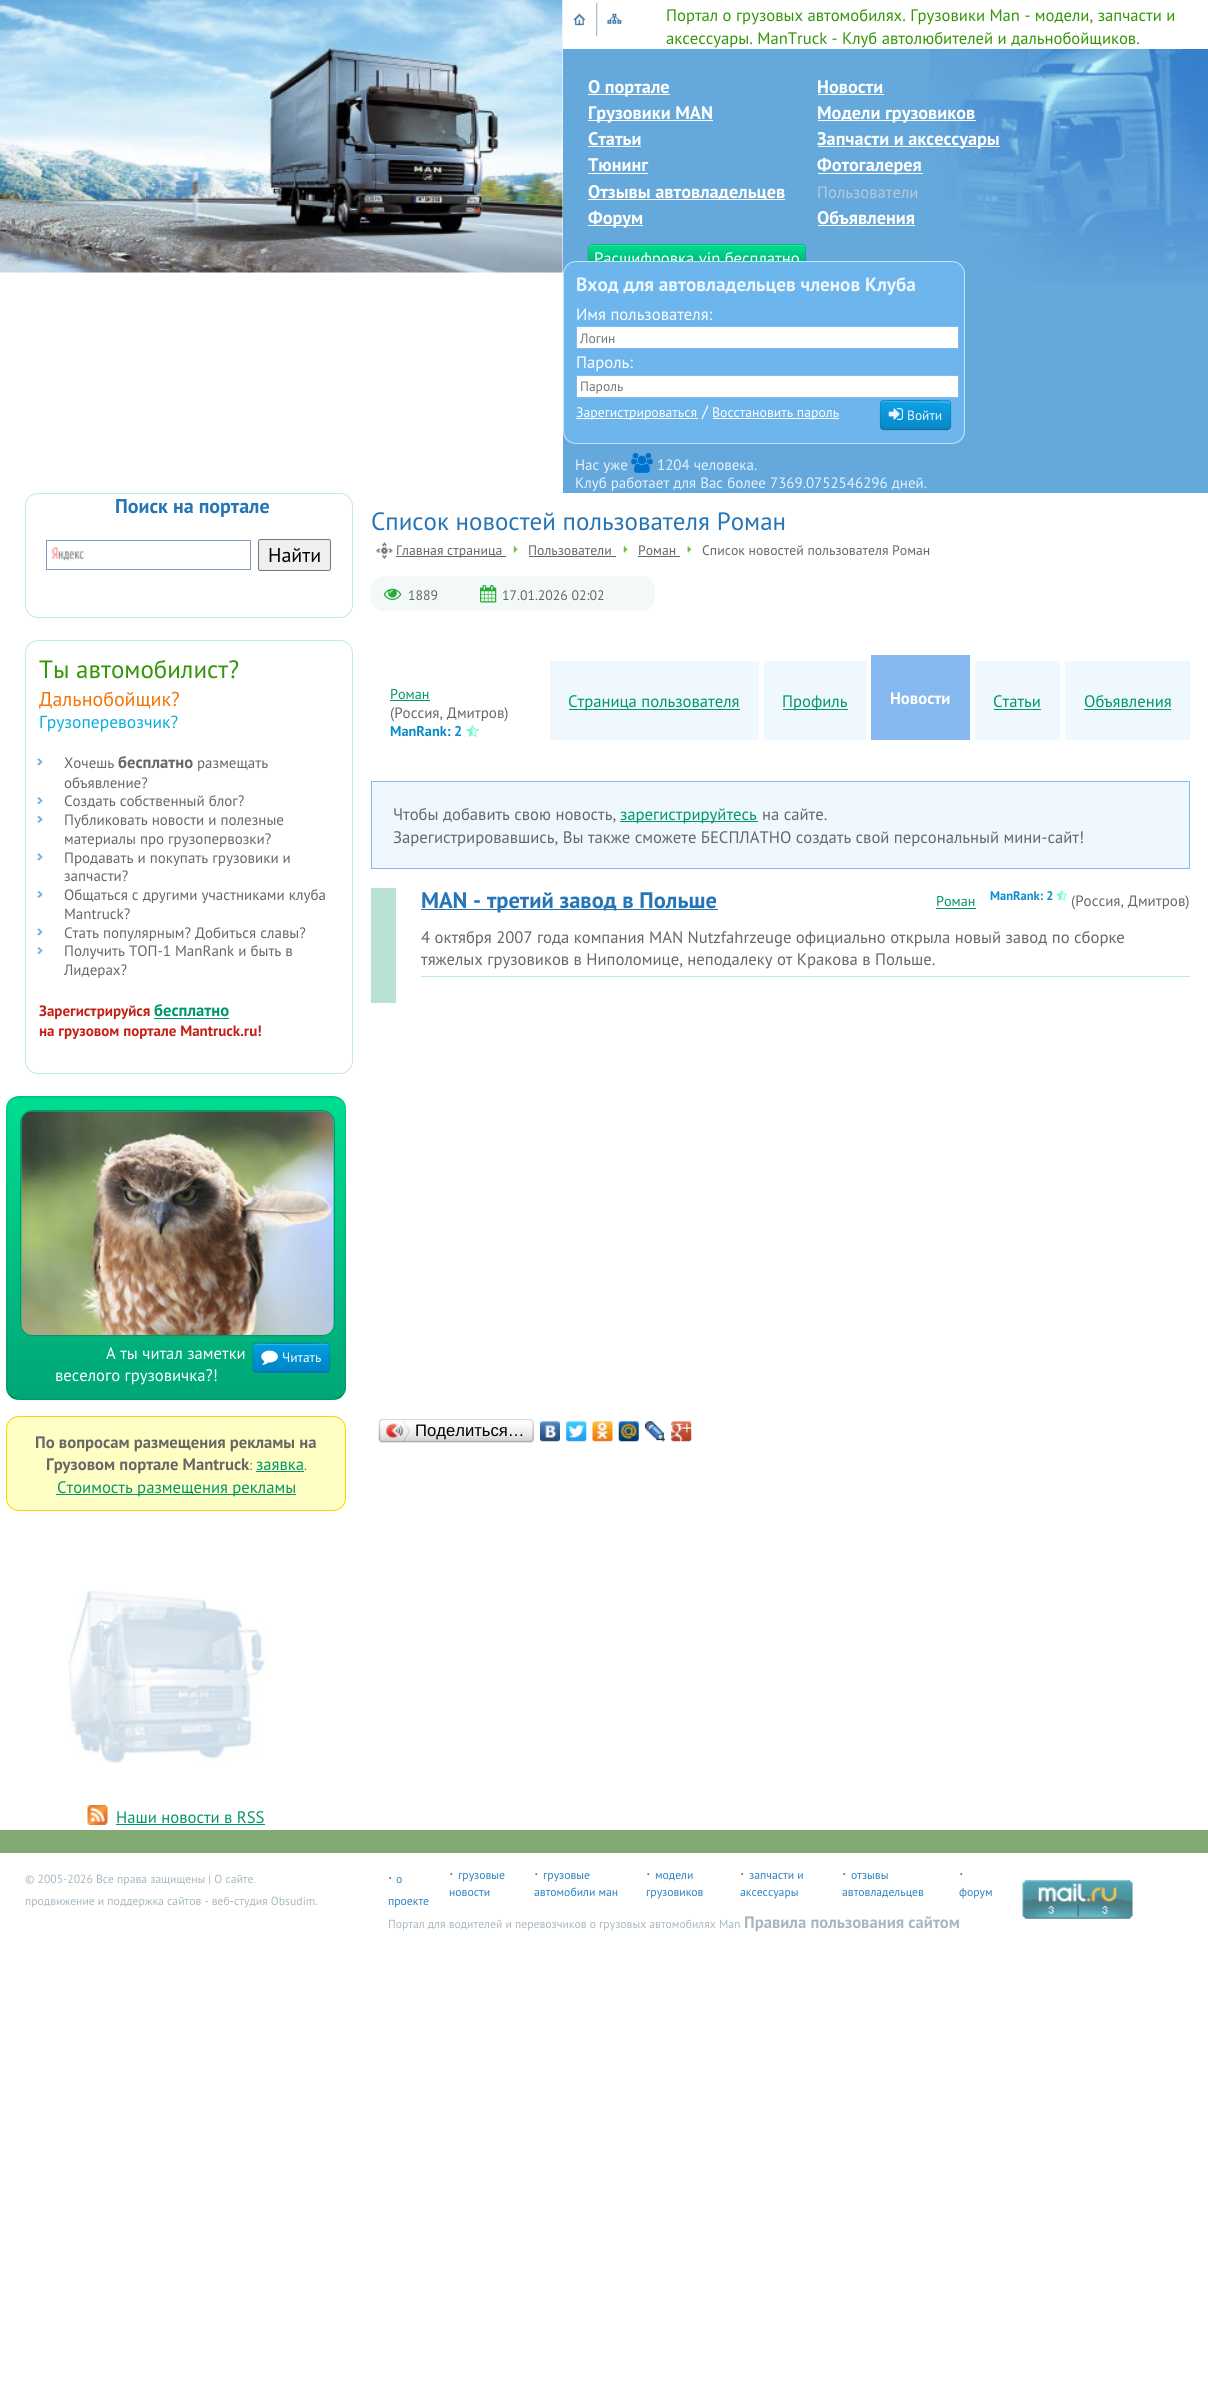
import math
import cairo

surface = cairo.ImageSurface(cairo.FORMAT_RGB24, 1208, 2384)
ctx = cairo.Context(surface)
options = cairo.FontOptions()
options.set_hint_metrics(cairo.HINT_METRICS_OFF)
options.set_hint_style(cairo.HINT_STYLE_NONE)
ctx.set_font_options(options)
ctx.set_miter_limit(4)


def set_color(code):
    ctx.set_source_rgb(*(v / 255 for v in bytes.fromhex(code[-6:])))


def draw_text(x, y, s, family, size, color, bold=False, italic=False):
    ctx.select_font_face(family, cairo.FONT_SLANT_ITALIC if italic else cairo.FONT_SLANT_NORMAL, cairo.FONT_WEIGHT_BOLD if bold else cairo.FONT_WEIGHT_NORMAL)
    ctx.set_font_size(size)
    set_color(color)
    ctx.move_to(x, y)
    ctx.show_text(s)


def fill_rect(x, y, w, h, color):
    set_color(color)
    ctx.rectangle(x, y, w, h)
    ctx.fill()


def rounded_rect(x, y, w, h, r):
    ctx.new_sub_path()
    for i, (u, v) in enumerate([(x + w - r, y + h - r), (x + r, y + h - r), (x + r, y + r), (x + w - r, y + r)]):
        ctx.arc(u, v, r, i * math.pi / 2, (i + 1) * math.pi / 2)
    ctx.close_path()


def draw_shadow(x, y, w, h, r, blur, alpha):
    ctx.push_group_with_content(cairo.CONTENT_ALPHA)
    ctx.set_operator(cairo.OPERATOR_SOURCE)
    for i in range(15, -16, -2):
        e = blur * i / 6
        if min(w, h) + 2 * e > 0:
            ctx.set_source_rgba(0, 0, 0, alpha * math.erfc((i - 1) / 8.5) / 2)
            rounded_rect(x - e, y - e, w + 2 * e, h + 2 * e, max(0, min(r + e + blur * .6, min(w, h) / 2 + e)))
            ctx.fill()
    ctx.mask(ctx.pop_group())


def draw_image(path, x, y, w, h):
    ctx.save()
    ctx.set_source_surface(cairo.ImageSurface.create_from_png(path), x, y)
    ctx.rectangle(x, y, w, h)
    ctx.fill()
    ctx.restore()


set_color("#ffffff")
ctx.paint()
draw_image("assets/img1.png", 0, 0, 563, 273)
fill_rect(563, 49, 645, 444, "#65a8dc")
draw_image("assets/img2.png", 562, 0, 24, 40)
draw_image("assets/img3.png", 596, 2, 2, 35)
draw_image("assets/img4.png", 597, 2, 25, 35)
draw_text(666, 21, "Портал о грузовых автомобилях. Грузовики Man - модели, запчасти и", "PT Sans", 16.65, "#339508")
draw_text(666, 44, "аксессуары. ManTruck - Клуб автолюбителей и дальнобойщиков.", "PT Sans", 16.65, "#339508")
draw_image("assets/img5.png", 929, 49, 279, 234)
fill_rect(588, 94, 82, 1, "#ffffff")
draw_text(588, 93, "О портале", "PT Sans", 18.25, "#ffffff", bold=True)
draw_text(817, 93, "Новости", "PT Sans", 18.25, "#ffffff", bold=True)
fill_rect(818, 94, 66, 1, "#ffffff")
fill_rect(588, 120, 125, 1, "#ffffff")
draw_text(588, 119, "Грузовики MAN", "PT Sans", 18.25, "#ffffff", bold=True)
fill_rect(818, 120, 158, 1, "#ffffff")
draw_text(817, 119, "Модели грузовиков", "PT Sans", 18.25, "#ffffff", bold=True)
draw_text(588, 145, "Статьи", "PT Sans", 18.25, "#ffffff", bold=True)
fill_rect(588, 146, 53, 1, "#ffffff")
fill_rect(818, 146, 182, 1, "#ffffff")
draw_text(817, 145, "Запчасти и аксессуары", "PT Sans", 18.25, "#ffffff", bold=True)
draw_text(588, 171, "Тюнинг", "PT Sans", 18.25, "#ffffff", bold=True)
fill_rect(588, 173, 60, 1, "#ffffff")
fill_rect(818, 173, 105, 1, "#ffffff")
draw_text(817, 171, "Фотогалерея", "PT Sans", 18.25, "#ffffff", bold=True)
fill_rect(588, 199, 197, 1, "#ffffff")
draw_text(588, 198, "Отзывы автовладельцев", "PT Sans", 18.25, "#ffffff", bold=True)
draw_text(817, 198, "Пользователи", "PT Sans", 16.65, "#b9cad7")
fill_rect(588, 225, 55, 1, "#ffffff")
draw_text(588, 224, "Форум", "PT Sans", 18.25, "#ffffff", bold=True)
draw_text(817, 224, "Объявления", "PT Sans", 18.25, "#ffffff", bold=True)
fill_rect(818, 225, 97, 1, "#ffffff")
set_color("#00d087")
rounded_rect(588, 244, 218, 29, 5)
ctx.fill()
ctx.save()
rounded_rect(588, 244, 218, 29, 5)
ctx.clip()
gradient = cairo.LinearGradient(697, 245, 697, 271)
gradient.add_color_stop_rgba(0, 0, 0.867, 0.565, 1)
gradient.add_color_stop_rgba(1, 0, 0.651, 0.467, 1)
ctx.set_source(gradient)
ctx.rectangle(588, 245, 218, 16)
ctx.fill()
ctx.restore()
ctx.set_source_rgba(1, 1, 1, 0.2)
ctx.new_path()
ctx.move_to(592, 246)
ctx.line_to(801, 246)
ctx.curve_to(803, 246, 805, 248, 805, 250)
ctx.curve_to(805, 247, 804, 245, 801, 245)
ctx.line_to(591, 245)
ctx.curve_to(589, 246, 589, 248, 589, 250)
ctx.curve_to(589, 248, 590, 246, 592, 246)
ctx.close_path()
ctx.fill()
ctx.new_path()
ctx.move_to(589.5, 270.5)
ctx.curve_to(587, 268, 588, 258.5, 588, 255)
ctx.curve_to(588, 251.5, 587, 244.5, 592.5, 244.5)
ctx.line_to(801, 244.5)
ctx.curve_to(807, 244.5, 805.5, 251.5, 805.5, 255)
ctx.curve_to(805.5, 258.5, 807, 268, 804.5, 270.5)
ctx.set_source_rgba(0, 0, 0, 0.1)
ctx.set_line_width(1.2)
ctx.stroke()
draw_text(594, 264, "Расшифровка vin бесплатно", "PT Sans", 16.65, "#ffffff")
set_color("#6db5ed")
rounded_rect(563.5, 261.5, 401, 182, 12.5)
ctx.fill_preserve()
set_color("#c2e7ec")
ctx.set_line_width(1)
ctx.stroke()
draw_text(576, 291, "Вход для автовладельцев членов Клуба", "PT Sans", 19.2, "#edf7ff", bold=True)
draw_text(576, 320, "Имя пользователя:", "PT Sans", 16.65, "#ffffff")
ctx.rectangle(576.5, 326.5, 382, 22)
ctx.fill_preserve()
set_color("#84b8ee")
ctx.stroke()
draw_text(580, 343, "Логин", "PT Sans", 13.5, "#757575")
draw_text(576, 368, "Пароль:", "PT Sans", 16.65, "#ffffff")
ctx.rectangle(576.5, 375.5, 382, 22)
ctx.fill_preserve()
set_color("#84b8ee")
ctx.stroke()
draw_text(580, 391, "Пароль", "PT Sans", 13.5, "#757575")
fill_rect(576, 418, 122, 1, "#ffffff")
draw_text(576, 417, "Зарегистрироваться", "PT Sans", 13.75, "#ffffff")
draw_text(702, 417, "/", "PT Sans", 16.65, "#ffffff")
fill_rect(713, 418, 126, 1, "#ffffff")
draw_text(712, 417, "Восстановить пароль", "PT Sans", 13.75, "#ffffff")
set_color("#0b1218")
draw_shadow(880, 401, 71, 30, 4, 1, 0.05)
set_color("#0b92d3")
rounded_rect(880, 400, 71, 30, 4)
ctx.fill()
ctx.save()
rounded_rect(880, 400, 71, 30, 4)
ctx.clip()
gradient = cairo.LinearGradient(916, 401, 916, 429)
gradient.add_color_stop_rgba(0, 0.043, 0.635, 0.898, 1)
gradient.add_color_stop_rgba(1, 0.043, 0.533, 0.784, 1)
ctx.set_source(gradient)
ctx.rectangle(880, 401, 71, 28)
ctx.fill()
ctx.restore()
ctx.set_source_rgba(0.941, 0.973, 0.992, 0.2)
ctx.set_fill_rule(cairo.FILL_RULE_EVEN_ODD)
ctx.new_path()
ctx.move_to(884, 402)
ctx.line_to(948, 403)
ctx.line_to(950, 404)
ctx.curve_to(950, 398, 939, 401, 937, 401)
ctx.line_to(894, 401)
ctx.curve_to(884, 401, 881, 398, 881, 407)
ctx.curve_to(881, 404, 882, 402, 884, 402)
ctx.close_path()
ctx.move_to(881, 428)
ctx.line_to(881, 424)
ctx.close_path()
ctx.fill()
ctx.new_path()
ctx.move_to(949.5, 428.5)
ctx.line_to(947.5, 429.5)
ctx.line_to(884, 429.5)
ctx.line_to(881.5, 428.5)
ctx.set_source_rgba(0.043, 0.071, 0.094, 0.25)
ctx.set_line_width(1.2)
ctx.stroke()
ctx.new_path()
ctx.move_to(881.5, 428.5)
ctx.curve_to(879.5, 426.5, 880.5, 417.5, 880.5, 415)
ctx.curve_to(880.5, 398.5, 878, 400.5, 894.5, 400.5)
ctx.line_to(937, 400.5)
ctx.curve_to(953.5, 400.5, 950.5, 398.5, 950.5, 415)
ctx.curve_to(950.5, 417.5, 952, 426.5, 949.5, 428.5)
ctx.set_source_rgba(0.043, 0.071, 0.094, 0.1)
ctx.stroke()
draw_image("assets/img6.png", 888, 408, 16, 12)
draw_text(907, 420, "Войти", "PT Sans", 13.5, "#edf7ff")
draw_text(575, 470, "Нас уже", "PT Sans", 15, "#e4f3ff")
draw_image("assets/img7.png", 631, 452, 22, 21)
draw_text(657, 470, "1204 человека.", "PT Sans", 15, "#e4f3ff")
draw_text(575, 488, "Клуб работает для Вас более 7369.0752546296 дней.", "PT Sans", 15, "#e4f3ff")
rounded_rect(25.5, 493.5, 327, 124, 12.5)
set_color("#c2e7ec")
ctx.set_line_width(1)
ctx.stroke()
draw_text(115, 513, "Поиск на портале", "PT Sans", 20, "#2675b6", bold=True)
draw_image("assets/img8.png", 51, 547, 33, 14)
ctx.rectangle(46.5, 540.5, 204, 29)
set_color("#7f9db9")
ctx.stroke()
set_color("#efefef")
rounded_rect(258.5, 539.5, 72, 31, 2)
ctx.fill_preserve()
set_color("#767676")
ctx.stroke()
draw_text(268, 562, "Найти", "PT Sans", 20, "#000000")
rounded_rect(25.5, 640.5, 327, 433, 12.5)
set_color("#c2e7ec")
ctx.stroke()
draw_text(39, 678, "Ты автомобилист?", "PT Sans", 25, "#339508")
draw_text(39, 706, "Дальнобойщик?", "PT Sans", 20, "#f67408")
draw_text(39, 728, "Грузоперевозчик?", "PT Sans", 17.5, "#07addb")
draw_image("assets/img9.png", 37, 758, 6, 8)
draw_text(64, 768, "Хочешь", "PT Sans", 15, "#676767")
draw_text(118, 768, "бесплатно", "PT Sans", 16.65, "#676767", bold=True)
draw_text(197, 768, "размещать", "PT Sans", 15, "#676767")
draw_text(64, 788, "объявление?", "PT Sans", 15, "#676767")
draw_image("assets/img10.png", 37, 797, 6, 7)
draw_text(64, 806, "Создать собственный блог?", "PT Sans", 15, "#676767")
draw_image("assets/img11.png", 37, 816, 6, 7)
draw_text(64, 825, "Публиковать новости и полезные", "PT Sans", 15, "#676767")
draw_text(64, 844, "материалы про грузопервозки?", "PT Sans", 15, "#676767")
draw_image("assets/img9.png", 37, 853, 6, 8)
draw_text(64, 863, "Продавать и покупать грузовики и", "PT Sans", 15, "#676767")
draw_text(64, 881, "запчасти?", "PT Sans", 15, "#676767")
draw_image("assets/img11.png", 37, 891, 6, 7)
draw_text(64, 900, "Общаться с другими участниками клуба", "PT Sans", 15, "#676767")
draw_text(64, 919, "Mantruck?", "PT Sans", 15, "#676767")
draw_image("assets/img9.png", 37, 928, 6, 8)
draw_text(64, 938, "Стать популярным? Добиться славы?", "PT Sans", 15, "#676767")
draw_image("assets/img10.png", 37, 947, 6, 7)
draw_text(64, 956, "Получить ТОП-1 ManRank и быть в", "PT Sans", 15, "#676767")
draw_text(64, 975, "Лидерах?", "PT Sans", 15, "#676767")
draw_text(39, 1016, "Зарегистрируйся", "PT Sans", 15, "#c42015", bold=True)
draw_text(154, 1016, "бесплатно", "PT Sans", 16.65, "#00976c", bold=True)
fill_rect(154, 1018, 75, 1, "#00976c")
draw_text(39, 1036, "на грузовом портале Mantruck.ru!", "PT Sans", 15, "#c42015", bold=True)
set_color("#00d087")
rounded_rect(6, 1096, 340, 304, 13)
ctx.fill()
ctx.save()
ctx.set_fill_rule(cairo.FILL_RULE_WINDING)
rounded_rect(6, 1096, 340, 304, 13)
ctx.clip()
gradient = cairo.LinearGradient(176, 1098, 176, 1399)
gradient.add_color_stop_rgba(0, 0, 0.867, 0.565, 1)
gradient.add_color_stop_rgba(1, 0, 0.651, 0.467, 1)
ctx.set_source(gradient)
ctx.rectangle(6, 1098, 340, 301)
ctx.fill()
ctx.restore()
ctx.new_path()
ctx.move_to(342, 1396)
ctx.curve_to(340, 1398, 337, 1399.5, 334, 1399.5)
ctx.line_to(19, 1399.5)
ctx.curve_to(15.5, 1399.5, 12.5, 1398, 10.5, 1396)
ctx.set_source_rgba(0, 0, 0, 0.25)
ctx.set_line_width(1.2)
ctx.stroke()
ctx.new_path()
ctx.move_to(10.5, 1396)
ctx.curve_to(8, 1393.5, 7, 1390.5, 7, 1387.5)
ctx.line_to(7, 1109)
ctx.curve_to(7, 1105.5, 8, 1102.5, 10.5, 1100.5)
ctx.curve_to(12.5, 1098, 15.5, 1097, 18.5, 1097)
ctx.line_to(334, 1097)
ctx.curve_to(337, 1097, 340, 1098, 342, 1100.5)
ctx.curve_to(344.5, 1102.5, 345.5, 1105.5, 345.5, 1109)
ctx.line_to(345.5, 1387.5)
ctx.curve_to(345.5, 1390.5, 344.5, 1393.5, 342, 1396)
ctx.set_source_rgba(0, 0, 0, 0.1)
ctx.stroke()
rounded_rect(20.5, 1110.5, 314, 225, 12.5)
set_color("#00976c")
ctx.set_line_width(1)
ctx.stroke()
draw_image("assets/img12.png", 21, 1111, 313, 224)
draw_text(106, 1359, "А ты читал заметки", "PT Sans", 16.65, "#ffffff")
set_color("#008ed0")
rounded_rect(253, 1343, 77, 30, 4)
ctx.fill()
ctx.save()
ctx.set_fill_rule(cairo.FILL_RULE_WINDING)
rounded_rect(253, 1343, 77, 30, 4)
ctx.clip()
gradient = cairo.LinearGradient(291, 1344, 291, 1371)
gradient.add_color_stop_rgba(0, 0, 0.627, 0.894, 1)
gradient.add_color_stop_rgba(1, 0, 0.514, 0.769, 1)
ctx.set_source(gradient)
ctx.rectangle(253, 1344, 77, 27)
ctx.fill()
ctx.restore()
ctx.set_source_rgba(1, 1, 1, 0.2)
ctx.set_fill_rule(cairo.FILL_RULE_WINDING)
ctx.new_path()
ctx.move_to(256, 1345)
ctx.line_to(326, 1345)
ctx.curve_to(328, 1345, 329, 1346, 329, 1348)
ctx.curve_to(329, 1341, 320, 1344, 315, 1344)
ctx.line_to(268, 1344)
ctx.curve_to(263, 1344, 254, 1341, 254, 1348)
ctx.curve_to(254, 1346, 255, 1345, 256, 1345)
ctx.close_path()
ctx.fill()
ctx.new_path()
ctx.move_to(328.5, 1371)
ctx.line_to(326.5, 1372)
ctx.line_to(256, 1372)
ctx.line_to(254, 1371)
ctx.set_source_rgba(0, 0, 0, 0.25)
ctx.set_line_width(1.2)
ctx.stroke()
ctx.new_path()
ctx.move_to(254, 1371)
ctx.curve_to(252, 1369, 253, 1360, 253, 1357.5)
ctx.curve_to(253, 1341, 250.5, 1343, 268, 1343)
ctx.line_to(314.5, 1343)
ctx.curve_to(332, 1343, 329.5, 1341, 329.5, 1357.5)
ctx.curve_to(329.5, 1360, 330.5, 1369, 328.5, 1371)
ctx.set_source_rgba(0, 0, 0, 0.1)
ctx.stroke()
draw_image("assets/img13.png", 261, 1350, 17, 15)
draw_text(282, 1362, "Читать", "PT Sans", 13.5, "#ffffff")
draw_text(55, 1381, "веселого грузовичка?!", "PT Sans", 16.65, "#ffffff")
set_color("#fffec4")
rounded_rect(6.5, 1416.5, 339, 94, 12.5)
ctx.fill_preserve()
set_color("#f6d700")
ctx.set_line_width(1)
ctx.stroke()
draw_text(35, 1448, "По вопросам размещения рекламы на", "PT Sans", 16.65, "#676767", bold=True)
draw_text(46, 1470, "Грузовом портале Mantruck", "PT Sans", 16.65, "#676767", bold=True)
draw_text(249, 1470, ":", "PT Sans", 13.75, "#676767")
draw_text(256, 1470, "заявка", "PT Sans", 16.65, "#00976c")
fill_rect(256, 1471, 48, 1, "#00976c")
draw_text(304, 1470, ".", "PT Sans", 13.75, "#676767")
fill_rect(56, 1494, 240, 1, "#00976c")
draw_text(57, 1493, "Стоимость размещения рекламы", "PT Sans", 16.65, "#00976c")
draw_image("assets/img14.png", 66, 1590, 200, 174)
draw_image("assets/img15.png", 87, 1805, 21, 20)
draw_text(116, 1823, "Наши новости в RSS", "PT Sans", 16.65, "#00976c")
fill_rect(116, 1824, 149, 1, "#00976c")
draw_text(371, 530, "Список новостей пользователя Роман", "PT Sans", 25, "#2675b6")
draw_image("assets/img16.png", 376, 542, 17, 17)
fill_rect(396, 556, 110, 1, "#676767")
draw_text(396, 555, "Главная страница", "PT Sans", 13.75, "#676767")
draw_image("assets/img17.png", 513, 546, 5, 7)
draw_text(528, 555, "Пользователи", "PT Sans", 13.75, "#676767")
fill_rect(529, 556, 87, 1, "#676767")
draw_image("assets/img17.png", 623, 546, 5, 7)
draw_text(638, 555, "Роман", "PT Sans", 13.75, "#676767")
fill_rect(638, 556, 42, 1, "#676767")
draw_image("assets/img18.png", 687, 546, 5, 7)
draw_text(702, 555, "Список новостей пользователя Роман", "PT Sans", 13.75, "#676767")
set_color("#f2f9f8")
rounded_rect(371, 576, 284, 35, 13)
ctx.fill()
draw_image("assets/img19.png", 383, 588, 19, 12)
draw_text(408, 600, "1889", "PT Sans", 13.75, "#676767")
draw_image("assets/img20.png", 480, 585, 17, 18)
draw_text(502, 600, "17.01.2026 02:02", "PT Sans", 13.75, "#676767")
fill_rect(871, 655, 99, 85, "#84b8ee")
draw_text(390, 699, "Роман", "PT Sans", 14.25, "#00976c")
fill_rect(390, 700, 40, 1, "#00976c")
draw_text(390, 718, "(Россия, Дмитров)", "PT Sans", 15, "#676767")
draw_text(390, 736, "ManRank: 2", "PT Sans", 14.25, "#0b8bcc", bold=True)
draw_image("assets/img21.png", 466, 725, 13, 12)
fill_rect(550, 661, 209, 79, "#eff7ff")
fill_rect(569, 709, 171, 1, "#00976c")
draw_text(568, 707, "Страница пользователя", "PT Sans", 16.65, "#00976c")
fill_rect(764, 661, 102, 79, "#eff7ff")
fill_rect(783, 709, 65, 1, "#00976c")
draw_text(782, 707, "Профиль", "PT Sans", 16.65, "#00976c")
draw_text(890, 704, "Новости", "PT Sans", 16.65, "#ffffff", bold=True)
fill_rect(975, 661, 85, 79, "#eff7ff")
draw_text(993, 707, "Статьи", "PT Sans", 16.65, "#00976c")
fill_rect(994, 709, 47, 1, "#00976c")
fill_rect(1065, 661, 125, 79, "#eff7ff")
draw_text(1084, 707, "Объявления", "PT Sans", 16.65, "#00976c")
fill_rect(1084, 709, 87, 1, "#00976c")
set_color("#eff7ff")
ctx.rectangle(371.5, 781.5, 818, 87)
ctx.fill_preserve()
set_color("#84b8ee")
ctx.stroke()
draw_text(393, 820, "Чтобы добавить свою новость,", "PT Sans", 16.65, "#676767")
fill_rect(620, 821, 138, 1, "#00976c")
draw_text(620, 820, "зарегистрируйтесь", "PT Sans", 16.65, "#00976c")
draw_text(762, 820, "на сайте.", "PT Sans", 16.65, "#676767")
draw_text(393, 843, "Зарегистрировавшись, Вы также сможете БЕСПЛАТНО создать свой персональный мини-сайт!", "PT Sans", 16.65, "#676767")
fill_rect(371, 888, 25, 115, "#bae1d6")
fill_rect(421, 909, 297, 1, "#2675b6")
draw_text(421, 908, "MAN - третий завод в Польше", "PT Sans", 22.5, "#2675b6", bold=True)
draw_text(936, 906, "Роман", "PT Sans", 14.25, "#00976c")
fill_rect(936, 908, 40, 1, "#00976c")
draw_text(990, 900, "ManRank: 2", "PT Sans", 12.5, "#0b8bcc", bold=True)
draw_image("assets/img22.png", 1056, 890, 12, 11)
draw_text(1071, 906, "(Россия, Дмитров)", "PT Sans", 15, "#676767")
draw_text(421, 943, "4 октября 2007 года компания MAN Nutzfahrzeuge официально открыла новый завод по сборке", "PT Sans", 16.65, "#676767")
draw_text(421, 965, "тяжелых грузовиков в Ниполомице, неподалеку от Кракова в Польше.", "PT Sans", 16.65, "#676767")
fill_rect(421, 976, 769, 1, "#bde5ec")
draw_image("assets/img23.png", 382, 1419, 148, 24)
draw_image("assets/img24.png", 378, 1418, 5, 25)
draw_image("assets/img25.png", 386, 1420, 25, 22)
draw_text(415, 1436, "Поделиться…", "Liberation Sans", 16.65, "#000000")
draw_image("assets/img26.png", 530, 1418, 4, 25)
draw_image("assets/img27.png", 540, 1421, 20, 21)
draw_image("assets/img28.png", 566, 1421, 21, 21)
draw_image("assets/img29.png", 592, 1421, 21, 21)
draw_image("assets/img30.png", 618, 1421, 21, 21)
draw_image("assets/img31.png", 645, 1421, 20, 21)
draw_image("assets/img32.png", 671, 1421, 21, 21)
fill_rect(0, 1830, 1208, 23, "#83aa71")
draw_text(25, 1883, "© 2005-2026 Все права защищены | О сайте.", "PT Sans", 11.7, "#a7b7c1")
draw_text(25, 1905, "продвижение и поддержка сайтов - веб-студия Obsudim.", "PT Sans", 11.7, "#a7b7c1")
draw_text(388, 1883, "·", "PT Sans", 16.65, "#676767")
draw_text(396, 1883, "о", "PT Sans", 11.7, "#2b81c0")
draw_text(388, 1905, "проекте", "PT Sans", 11.7, "#2b81c0")
draw_text(449, 1879, "·", "PT Sans", 16.65, "#676767")
draw_text(458, 1879, "грузовые", "PT Sans", 11.7, "#2b81c0")
draw_text(449, 1896, "новости", "PT Sans", 11.7, "#2b81c0")
draw_text(534, 1879, "·", "PT Sans", 16.65, "#676767")
draw_text(543, 1879, "грузовые", "PT Sans", 11.7, "#2b81c0")
draw_text(534, 1896, "автомобили ман", "PT Sans", 11.7, "#2b81c0")
draw_text(646, 1879, "·", "PT Sans", 16.65, "#676767")
draw_text(655, 1879, "модели", "PT Sans", 11.7, "#2b81c0")
draw_text(646, 1896, "грузовиков", "PT Sans", 11.7, "#2b81c0")
draw_text(740, 1879, "·", "PT Sans", 16.65, "#676767")
draw_text(749, 1879, "запчасти и", "PT Sans", 11.7, "#2b81c0")
draw_text(740, 1896, "аксессуары", "PT Sans", 11.7, "#2b81c0")
draw_text(842, 1879, "·", "PT Sans", 16.65, "#676767")
draw_text(851, 1879, "отзывы", "PT Sans", 11.7, "#2b81c0")
draw_text(842, 1896, "автовладельцев", "PT Sans", 11.7, "#2b81c0")
draw_text(959, 1879, "·", "PT Sans", 16.65, "#676767")
draw_text(959, 1896, "форум", "PT Sans", 11.7, "#2b81c0")
draw_text(388, 1928, "Портал для водителей и перевозчиков о грузовых автомобилях Man", "PT Sans", 11.7, "#a7b7c1")
draw_text(744, 1928, "Правила пользования сайтом", "PT Sans", 16.65, "#a7b7c1", bold=True)
draw_image("assets/img33.png", 1022, 1880, 111, 39)
surface.write_to_png("output.png")
